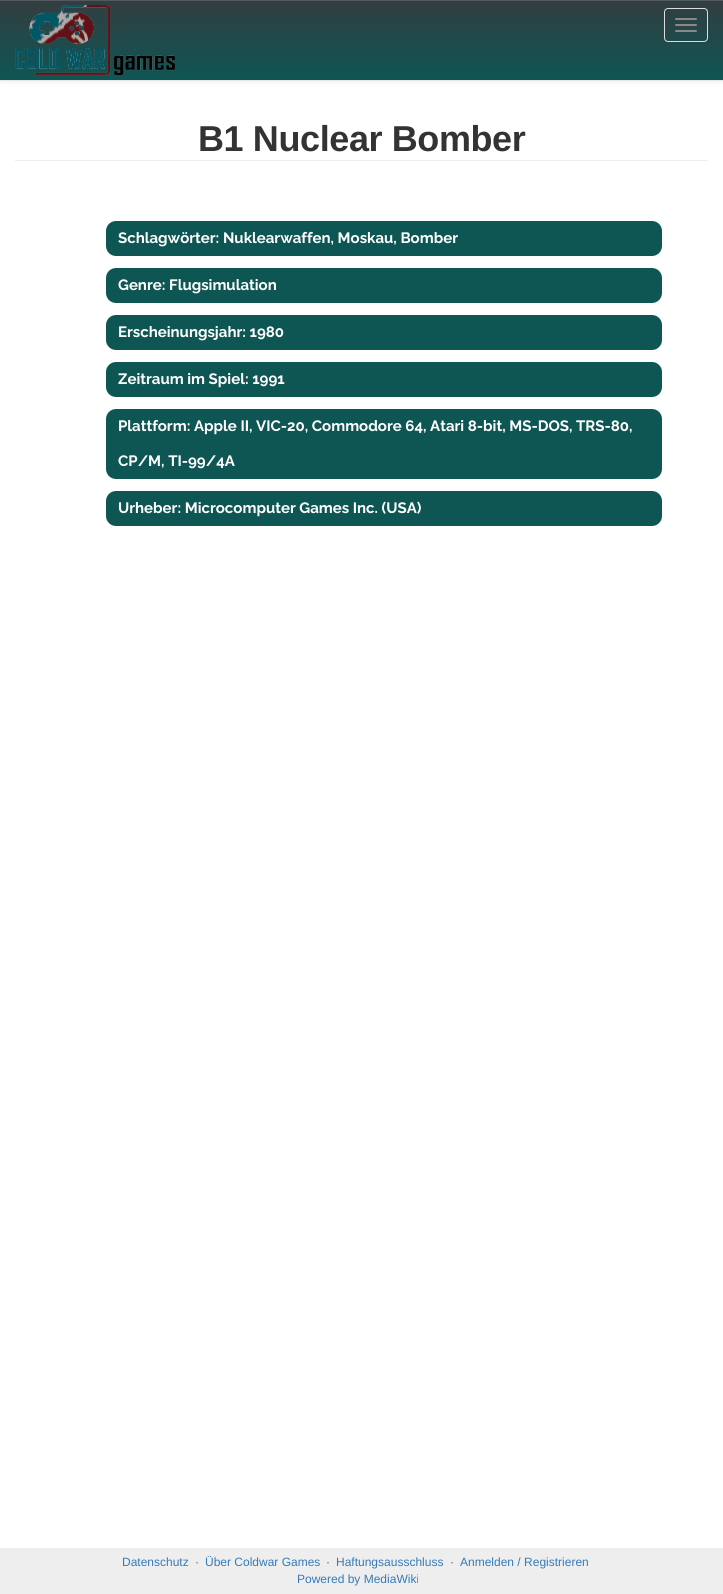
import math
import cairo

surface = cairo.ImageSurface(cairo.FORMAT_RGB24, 723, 1594)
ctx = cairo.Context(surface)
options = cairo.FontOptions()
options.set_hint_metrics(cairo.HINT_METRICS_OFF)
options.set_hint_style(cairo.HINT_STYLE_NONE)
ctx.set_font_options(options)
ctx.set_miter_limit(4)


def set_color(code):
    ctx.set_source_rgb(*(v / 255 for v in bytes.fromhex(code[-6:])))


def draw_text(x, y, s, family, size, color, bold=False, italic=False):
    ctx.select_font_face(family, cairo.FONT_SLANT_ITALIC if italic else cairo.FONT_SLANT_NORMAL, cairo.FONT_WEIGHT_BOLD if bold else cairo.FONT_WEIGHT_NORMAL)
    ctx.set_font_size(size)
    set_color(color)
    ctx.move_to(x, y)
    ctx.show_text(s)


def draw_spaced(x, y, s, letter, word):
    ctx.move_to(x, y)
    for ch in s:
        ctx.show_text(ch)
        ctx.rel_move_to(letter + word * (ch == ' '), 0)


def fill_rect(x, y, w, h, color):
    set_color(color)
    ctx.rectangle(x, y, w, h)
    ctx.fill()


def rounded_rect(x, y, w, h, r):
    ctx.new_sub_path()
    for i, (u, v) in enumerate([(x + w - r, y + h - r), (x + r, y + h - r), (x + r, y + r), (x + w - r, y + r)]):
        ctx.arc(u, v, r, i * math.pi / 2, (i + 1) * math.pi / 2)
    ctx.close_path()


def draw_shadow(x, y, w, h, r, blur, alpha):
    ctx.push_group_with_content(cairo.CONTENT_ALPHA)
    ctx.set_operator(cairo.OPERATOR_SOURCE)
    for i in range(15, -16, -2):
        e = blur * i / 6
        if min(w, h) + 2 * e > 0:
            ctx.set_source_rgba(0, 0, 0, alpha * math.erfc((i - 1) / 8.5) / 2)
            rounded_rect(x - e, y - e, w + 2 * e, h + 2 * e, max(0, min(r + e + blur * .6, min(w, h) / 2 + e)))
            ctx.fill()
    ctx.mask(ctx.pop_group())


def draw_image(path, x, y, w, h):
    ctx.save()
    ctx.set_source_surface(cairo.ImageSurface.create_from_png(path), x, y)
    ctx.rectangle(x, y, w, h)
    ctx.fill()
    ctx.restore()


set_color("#ffffff")
ctx.paint()
set_color("#000000")
draw_shadow(0, 1, 723, 81, 0, 2.5, 0.07)
gradient = cairo.LinearGradient(362, 0, 362, 80)
gradient.add_color_stop_rgba(0, 0.2, 0.239, 0.251, 1)
gradient.add_color_stop_rgba(1, 0.055, 0.337, 0.329, 1)
ctx.set_source(gradient)
ctx.rectangle(0, 1, 723, 79)
ctx.fill()
fill_rect(0, 0, 723, 1, "#525a5d")
fill_rect(0, 80, 723, 1, "#e7e7e7")
draw_image("assets/img1.png", 15, 5, 160, 70)
rounded_rect(664.5, 8.5, 43, 33, 3.5)
set_color("#dddddd")
ctx.set_line_width(1)
ctx.stroke()
set_color("#888888")
rounded_rect(675, 18, 22, 2, 1)
ctx.fill()
rounded_rect(675, 24, 22, 2, 1)
ctx.fill()
rounded_rect(675, 30, 22, 2, 1)
ctx.fill()
fill_rect(15, 160, 693, 1, "#eeeeee")
ctx.select_font_face("Liberation Sans", cairo.FONT_SLANT_NORMAL, cairo.FONT_WEIGHT_BOLD)
ctx.set_font_size(36)
set_color("#333333")
draw_spaced(198, 151, "B1 Nuclear Bomber", -0.4, 0)
set_color("#0e5654")
rounded_rect(106, 221, 556, 35, 10)
ctx.fill()
draw_text(118, 243, "Schlagwörter: Nuklearwaffen, Moskau, Bomber", "Raleway", 15, "#ffffff", bold=True)
set_color("#0e5654")
rounded_rect(106, 268, 556, 35, 10)
ctx.fill()
draw_text(118, 290, "Genre: Flugsimulation", "Raleway", 15, "#ffffff", bold=True)
set_color("#0e5654")
rounded_rect(106, 315, 556, 35, 10)
ctx.fill()
draw_text(118, 337, "Erscheinungsjahr: 1980", "Raleway", 15, "#ffffff", bold=True)
set_color("#0e5654")
rounded_rect(106, 362, 556, 35, 10)
ctx.fill()
draw_text(118, 384, "Zeitraum im Spiel: 1991", "Raleway", 15, "#ffffff", bold=True)
set_color("#0e5654")
rounded_rect(106, 409, 556, 70, 10)
ctx.fill()
draw_text(118, 431, "Plattform: Apple II, VIC-20, Commodore 64, Atari 8-bit, MS-DOS, TRS-80,", "Raleway", 15, "#ffffff", bold=True)
draw_text(118, 466, "CP/M, TI-99/4A", "Raleway", 15, "#ffffff", bold=True)
set_color("#0e5654")
rounded_rect(106, 491, 556, 35, 10)
ctx.fill()
draw_text(118, 513, "Urheber: Microcomputer Games Inc. (USA)", "Raleway", 15, "#ffffff", bold=True)
fill_rect(0, 1548, 723, 46, "#eeeeee")
draw_text(122, 1566, "Datenschutz", "Liberation Sans", 12, "#357bb8")
draw_text(195, 1566, "·", "Liberation Sans", 12, "#565656")
draw_text(205, 1566, "Über Coldwar Games", "Liberation Sans", 12, "#357bb8")
draw_text(326, 1566, "·", "Liberation Sans", 12, "#565656")
draw_text(336, 1566, "Haftungsausschluss", "Liberation Sans", 12, "#357bb8")
draw_text(450, 1566, "·", "Liberation Sans", 12, "#565656")
draw_text(460, 1566, "Anmelden / Registrieren", "Liberation Sans", 12, "#357bb8")
draw_text(297, 1583, "Powered by MediaWiki", "Liberation Sans", 12, "#357bb8")
surface.write_to_png("output.png")
